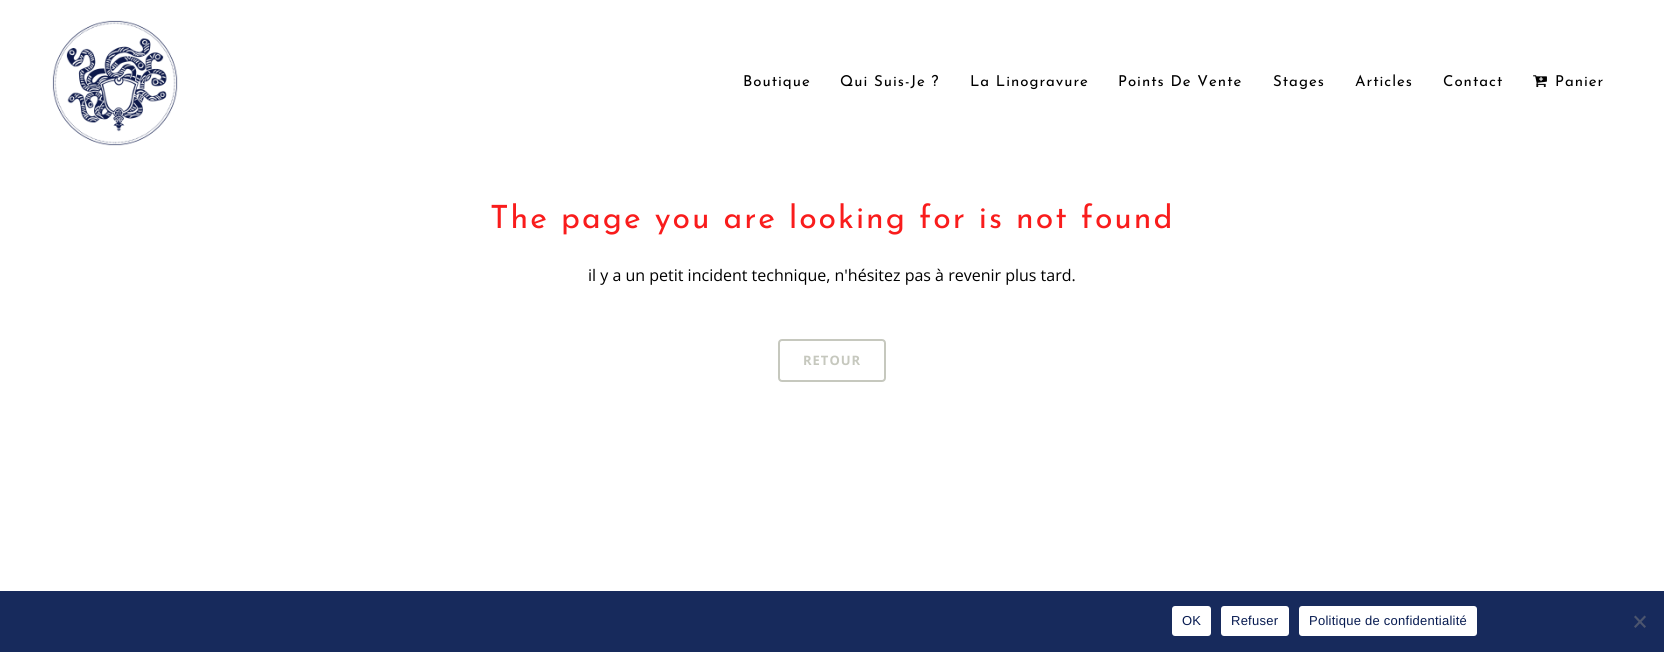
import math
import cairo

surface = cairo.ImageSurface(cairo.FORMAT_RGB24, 1664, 652)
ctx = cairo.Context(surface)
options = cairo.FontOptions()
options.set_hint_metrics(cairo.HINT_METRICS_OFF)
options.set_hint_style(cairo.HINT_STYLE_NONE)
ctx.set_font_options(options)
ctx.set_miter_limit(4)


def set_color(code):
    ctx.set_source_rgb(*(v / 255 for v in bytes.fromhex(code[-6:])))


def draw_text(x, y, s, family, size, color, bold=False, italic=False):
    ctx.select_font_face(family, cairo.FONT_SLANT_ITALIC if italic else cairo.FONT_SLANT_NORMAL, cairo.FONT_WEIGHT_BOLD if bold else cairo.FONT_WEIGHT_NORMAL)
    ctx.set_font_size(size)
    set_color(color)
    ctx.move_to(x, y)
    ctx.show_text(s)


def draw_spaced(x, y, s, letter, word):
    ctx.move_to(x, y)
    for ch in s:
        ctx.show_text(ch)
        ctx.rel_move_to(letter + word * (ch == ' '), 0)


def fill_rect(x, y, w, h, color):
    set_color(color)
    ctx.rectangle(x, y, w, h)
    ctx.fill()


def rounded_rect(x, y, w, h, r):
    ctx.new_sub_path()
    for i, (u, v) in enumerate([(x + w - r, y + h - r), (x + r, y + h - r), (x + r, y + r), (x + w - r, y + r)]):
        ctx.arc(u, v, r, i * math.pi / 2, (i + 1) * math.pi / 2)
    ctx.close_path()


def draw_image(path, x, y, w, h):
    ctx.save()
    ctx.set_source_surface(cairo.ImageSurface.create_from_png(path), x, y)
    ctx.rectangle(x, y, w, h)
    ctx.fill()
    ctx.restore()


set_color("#ffffff")
ctx.paint()
draw_image("assets/img1.png", 52, 20, 126, 126)
ctx.select_font_face("Josefin Sans")
ctx.set_font_size(15)
set_color("#000000")
draw_spaced(743, 86, "Boutique", 1, 0)
draw_spaced(840, 86, "Qui Suis-Je ?", 1, 0)
draw_spaced(970, 86, "La Linogravure", 1, 0)
draw_spaced(1118, 86, "Points De Vente", 1, 0)
draw_spaced(1273, 86, "Stages", 1, 0)
draw_spaced(1355, 86, "Articles", 1, 0)
draw_spaced(1443, 86, "Contact", 1, 0)
draw_image("assets/img2.png", 1533, 75, 14, 13)
draw_spaced(1555, 86, "Panier", 1, 0)
ctx.set_font_size(32)
set_color("#f91c1c")
draw_spaced(490, 228, "The page you are looking for is not found", 2, 0)
draw_text(588, 281, "il y a un petit incident technique, n'hésitez pas à revenir plus tard.", "Open Sans", 16, "#000000")
rounded_rect(779, 340, 106, 41, 3)
set_color("#c6c8be")
ctx.stroke()
ctx.select_font_face("Open Sans", cairo.FONT_SLANT_NORMAL, cairo.FONT_WEIGHT_BOLD)
ctx.set_font_size(13)
draw_spaced(803, 365, "RETOUR", 1, 0)
fill_rect(0, 591, 1664, 61, "#172a5c")
set_color("#ffffff")
rounded_rect(1172, 606, 39, 30, 3)
ctx.fill()
ctx.select_font_face("Liberation Sans")
set_color("#061a50")
draw_spaced(1182, 625, "OK", 0.25, 0)
set_color("#ffffff")
rounded_rect(1221, 606, 68, 30, 3)
ctx.fill()
set_color("#061a50")
draw_spaced(1231, 625, "Refuser", 0.25, 0)
set_color("#ffffff")
rounded_rect(1299, 606, 178, 30, 3)
ctx.fill()
set_color("#061a50")
draw_spaced(1309, 625, "Politique de confidentialité", 0.25, 0)
set_color("#4c556e")
ctx.new_path()
ctx.move_to(1644.5, 615.5)
ctx.line_to(1646, 617)
ctx.line_to(1635.5, 628)
ctx.line_to(1634, 626.5)
ctx.close_path()
ctx.fill()
ctx.new_path()
ctx.move_to(1634, 617)
ctx.line_to(1635.5, 615.5)
ctx.line_to(1646, 626.5)
ctx.line_to(1644.5, 628)
ctx.close_path()
ctx.fill()
surface.write_to_png("output.png")
